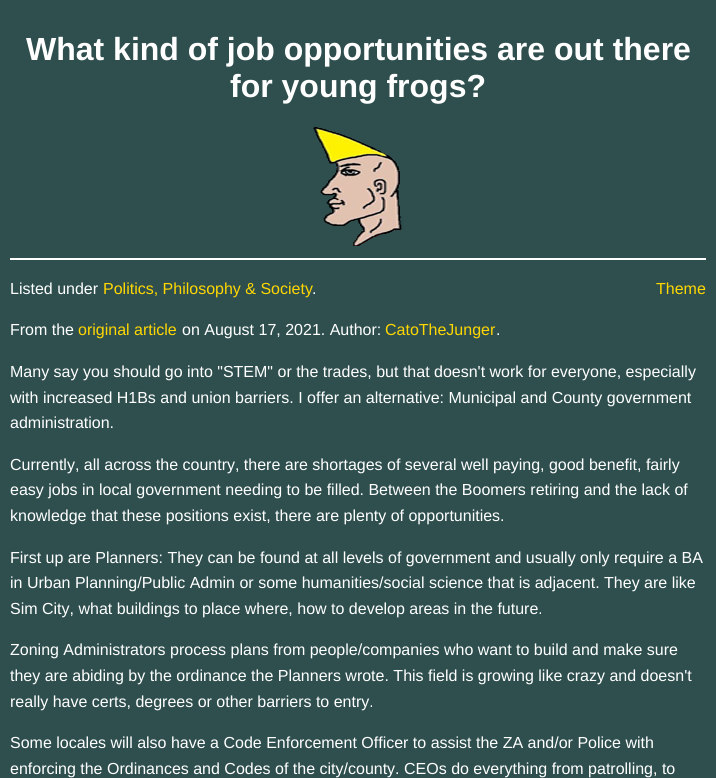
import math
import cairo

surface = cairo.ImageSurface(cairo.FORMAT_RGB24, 716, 778)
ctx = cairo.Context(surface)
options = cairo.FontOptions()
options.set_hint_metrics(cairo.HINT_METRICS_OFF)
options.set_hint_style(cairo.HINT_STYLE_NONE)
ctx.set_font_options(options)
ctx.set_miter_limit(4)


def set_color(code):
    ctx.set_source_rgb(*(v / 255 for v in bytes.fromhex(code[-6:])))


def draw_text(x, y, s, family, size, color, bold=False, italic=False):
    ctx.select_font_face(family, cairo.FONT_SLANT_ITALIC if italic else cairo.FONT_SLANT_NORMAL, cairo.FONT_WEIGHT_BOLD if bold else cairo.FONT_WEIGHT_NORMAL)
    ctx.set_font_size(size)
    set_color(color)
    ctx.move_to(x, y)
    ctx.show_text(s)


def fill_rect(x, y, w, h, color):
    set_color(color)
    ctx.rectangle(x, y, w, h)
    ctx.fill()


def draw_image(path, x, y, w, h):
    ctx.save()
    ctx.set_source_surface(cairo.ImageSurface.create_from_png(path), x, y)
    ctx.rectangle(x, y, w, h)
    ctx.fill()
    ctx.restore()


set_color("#2f4f4f")
ctx.paint()
draw_text(26, 60, "What kind of job opportunities are out there", "Liberation Sans", 32, "#ffffff", bold=True)
draw_text(230, 97, "for young frogs?", "Liberation Sans", 32, "#ffffff", bold=True)
draw_image("assets/img1.png", 313, 127, 91, 119)
fill_rect(10, 258, 696, 2, "#ffffff")
draw_text(10, 294, "Listed under", "Liberation Sans", 16, "#ffffff")
draw_text(103, 294, "Politics, Philosophy & Society", "Liberation Sans", 16, "#ffd700")
draw_text(312, 294, ".", "Liberation Sans", 16, "#ffffff")
draw_text(656, 294, "Theme", "Liberation Sans", 16, "#ffd700")
draw_text(10, 335, "From the", "Liberation Sans", 16, "#ffffff")
draw_text(78, 335, "original article", "Liberation Sans", 16, "#ffd700")
draw_text(182, 335, "on August 17, 2021. Author:", "Liberation Sans", 16, "#ffffff")
draw_text(385, 335, "CatoTheJunger", "Liberation Sans", 16, "#ffd700")
draw_text(496, 335, ".", "Liberation Sans", 16, "#ffffff")
draw_text(10, 377, "Many say you should go into \"STEM\" or the trades, but that doesn't work for everyone, especially", "Liberation Sans", 16, "#ffffff")
draw_text(10, 403, "with increased H1Bs and union barriers. I offer an alternative: Municipal and County government", "Liberation Sans", 16, "#ffffff")
draw_text(10, 428, "administration.", "Liberation Sans", 16, "#ffffff")
draw_text(10, 470, "Currently, all across the country, there are shortages of several well paying, good benefit, fairly", "Liberation Sans", 16, "#ffffff")
draw_text(10, 495, "easy jobs in local government needing to be filled. Between the Boomers retiring and the lack of", "Liberation Sans", 16, "#ffffff")
draw_text(10, 521, "knowledge that these positions exist, there are plenty of opportunities.", "Liberation Sans", 16, "#ffffff")
draw_text(10, 563, "First up are Planners: They can be found at all levels of government and usually only require a BA", "Liberation Sans", 16, "#ffffff")
draw_text(10, 588, "in Urban Planning/Public Admin or some humanities/social science that is adjacent. They are like", "Liberation Sans", 16, "#ffffff")
draw_text(10, 614, "Sim City, what buildings to place where, how to develop areas in the future.", "Liberation Sans", 16, "#ffffff")
draw_text(10, 655, "Zoning Administrators process plans from people/companies who want to build and make sure", "Liberation Sans", 16, "#ffffff")
draw_text(10, 681, "they are abiding by the ordinance the Planners wrote. This field is growing like crazy and doesn't", "Liberation Sans", 16, "#ffffff")
draw_text(10, 707, "really have certs, degrees or other barriers to entry.", "Liberation Sans", 16, "#ffffff")
draw_text(10, 748, "Some locales will also have a Code Enforcement Officer to assist the ZA and/or Police with", "Liberation Sans", 16, "#ffffff")
draw_text(10, 774, "enforcing the Ordinances and Codes of the city/county. CEOs do everything from patrolling, to", "Liberation Sans", 16, "#ffffff")
surface.write_to_png("output.png")
